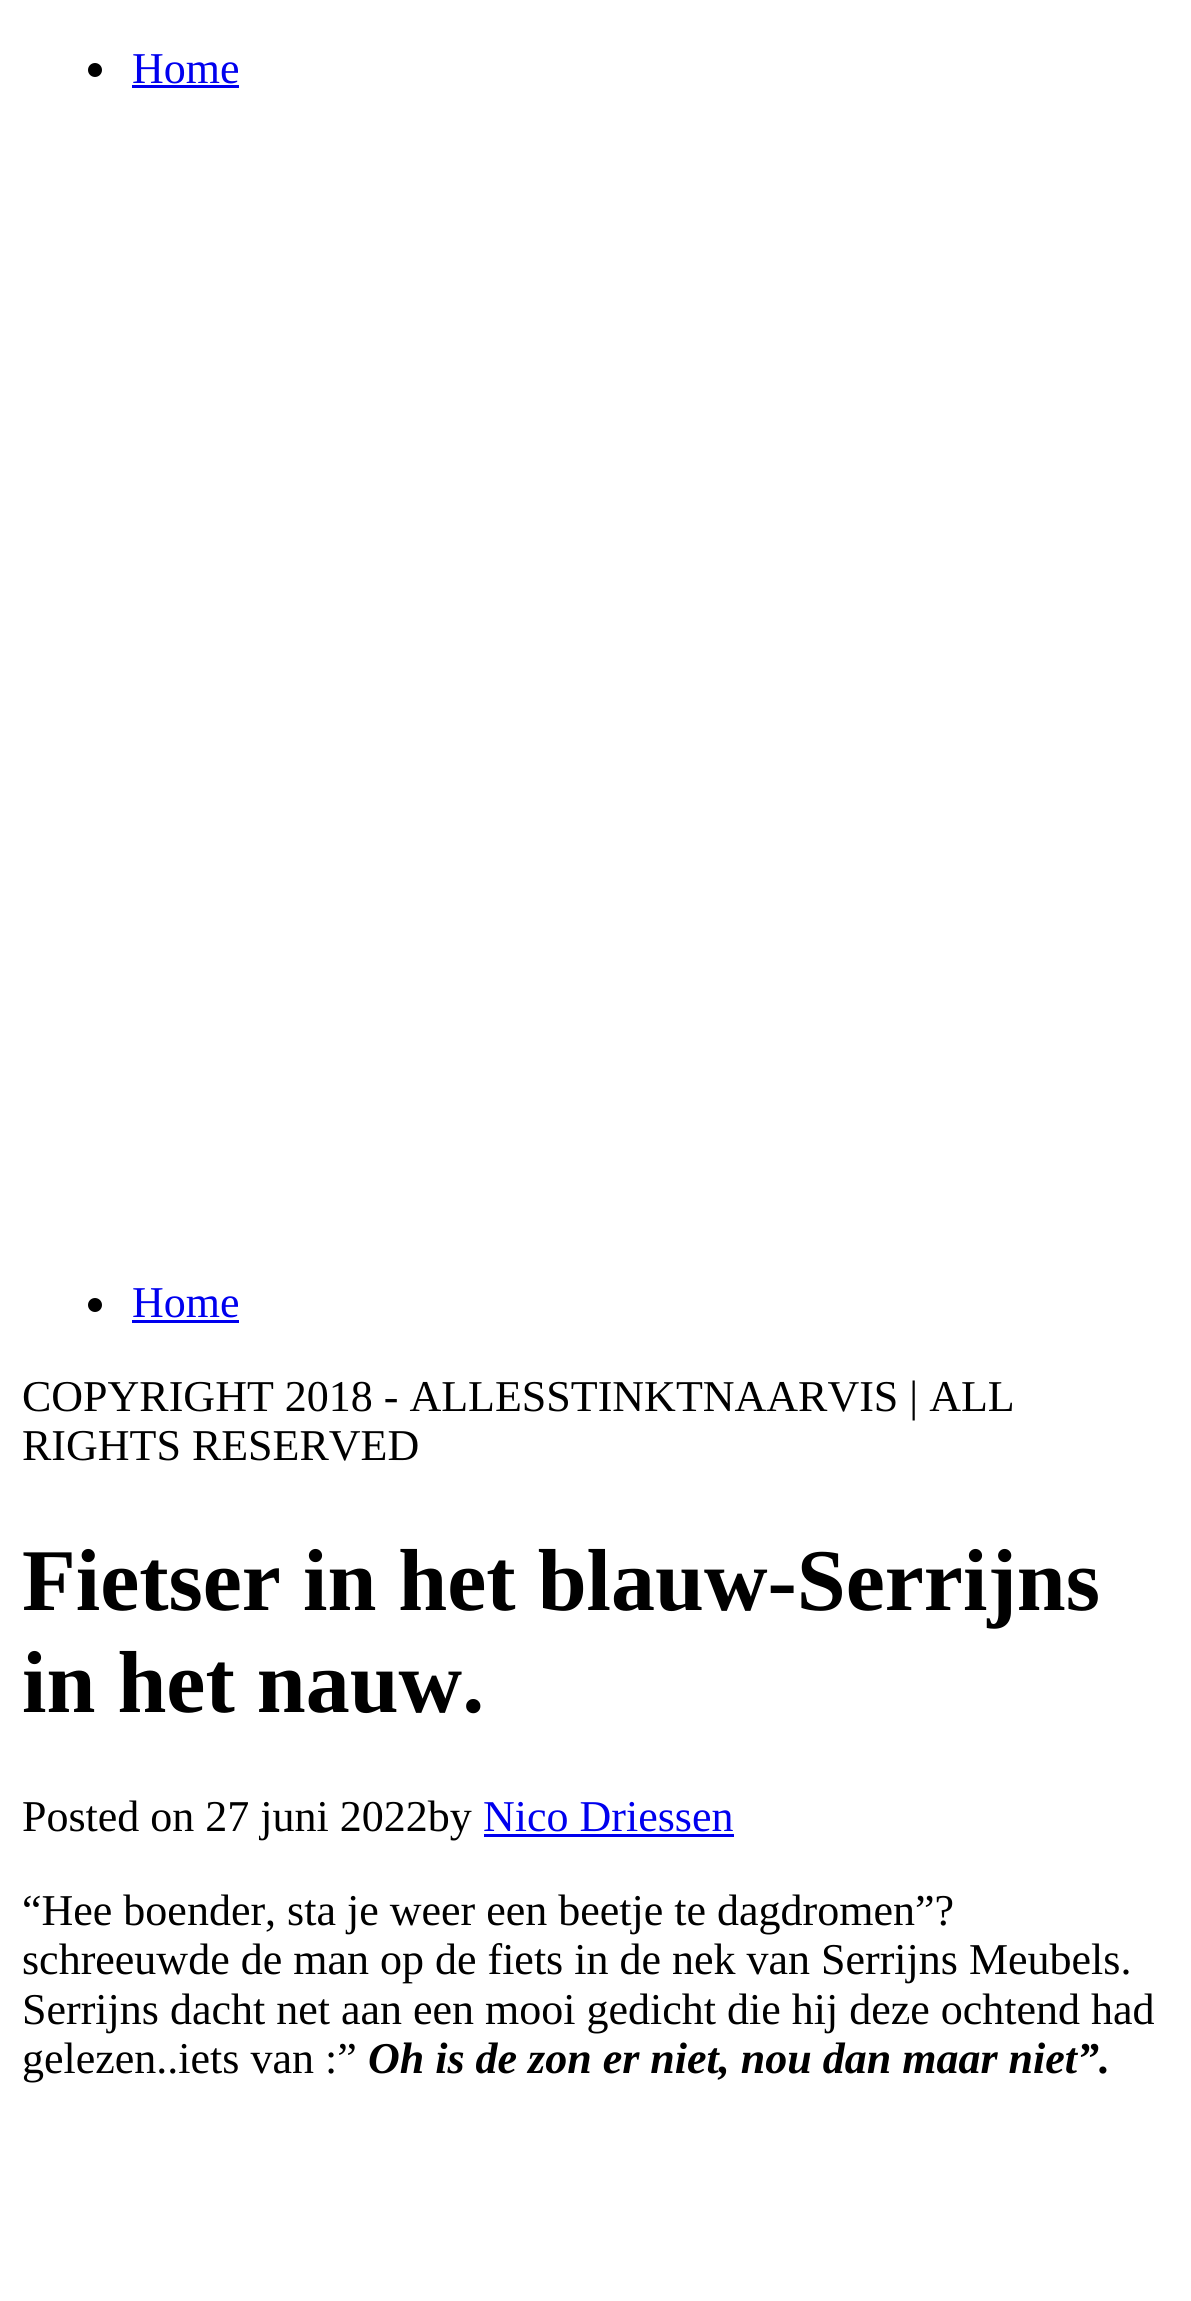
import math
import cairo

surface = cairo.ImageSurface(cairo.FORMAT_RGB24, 1191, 2301)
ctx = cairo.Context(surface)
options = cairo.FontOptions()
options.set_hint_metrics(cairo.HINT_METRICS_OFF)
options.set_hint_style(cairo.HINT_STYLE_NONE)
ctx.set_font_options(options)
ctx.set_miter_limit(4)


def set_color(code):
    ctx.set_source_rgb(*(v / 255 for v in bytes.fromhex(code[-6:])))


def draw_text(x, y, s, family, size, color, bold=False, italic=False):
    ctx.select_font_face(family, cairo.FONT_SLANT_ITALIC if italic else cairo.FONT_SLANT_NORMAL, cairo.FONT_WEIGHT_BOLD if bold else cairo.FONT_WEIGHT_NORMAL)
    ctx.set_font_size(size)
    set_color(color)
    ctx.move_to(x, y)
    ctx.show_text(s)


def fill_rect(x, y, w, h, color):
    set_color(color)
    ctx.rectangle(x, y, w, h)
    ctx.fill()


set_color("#ffffff")
ctx.paint()
set_color("#000000")
ctx.arc(95, 70, 7, 0, 2 * math.pi)
ctx.fill()
draw_text(132, 83, "Home", "Liberation Serif", 44, "#0000ee")
fill_rect(132, 85, 107, 3, "#0000ee")
set_color("#000000")
ctx.new_path()
ctx.arc(95, 1305, 7, 0, 2 * math.pi)
ctx.fill()
draw_text(132, 1317, "Home", "Liberation Serif", 44, "#0000ee")
fill_rect(132, 1320, 107, 3, "#0000ee")
draw_text(22, 1411, "COPYRIGHT 2018 - ALLESSTINKTNAARVIS | ALL", "Liberation Serif", 44, "#000000")
draw_text(22, 1460, "RIGHTS RESERVED", "Liberation Serif", 44, "#000000")
draw_text(22, 1610, "Fietser in het blauw-Serrijns", "Liberation Serif", 88, "#000000", bold=True)
draw_text(22, 1712, "in het nauw.", "Liberation Serif", 88, "#000000", bold=True)
draw_text(22, 1831, "Posted on 27 juni 2022by", "Liberation Serif", 44, "#000000")
draw_text(483, 1831, "Nico Driessen", "Liberation Serif", 44, "#0000ee")
fill_rect(484, 1834, 250, 3, "#0000ee")
draw_text(22, 1925, "“Hee boender, sta je weer een beetje te dagdromen”?", "Liberation Serif", 44, "#000000")
draw_text(22, 1974, "schreeuwde de man op de fiets in de nek van Serrijns Meubels.", "Liberation Serif", 44, "#000000")
draw_text(22, 2024, "Serrijns dacht net aan een mooi gedicht die hij deze ochtend had", "Liberation Serif", 44, "#000000")
draw_text(22, 2073, "gelezen..iets van :”", "Liberation Serif", 44, "#000000")
draw_text(368, 2073, "Oh is de zon er niet, nou dan maar niet”.", "Liberation Serif", 44, "#000000", bold=True, italic=True)
surface.write_to_png("output.png")
